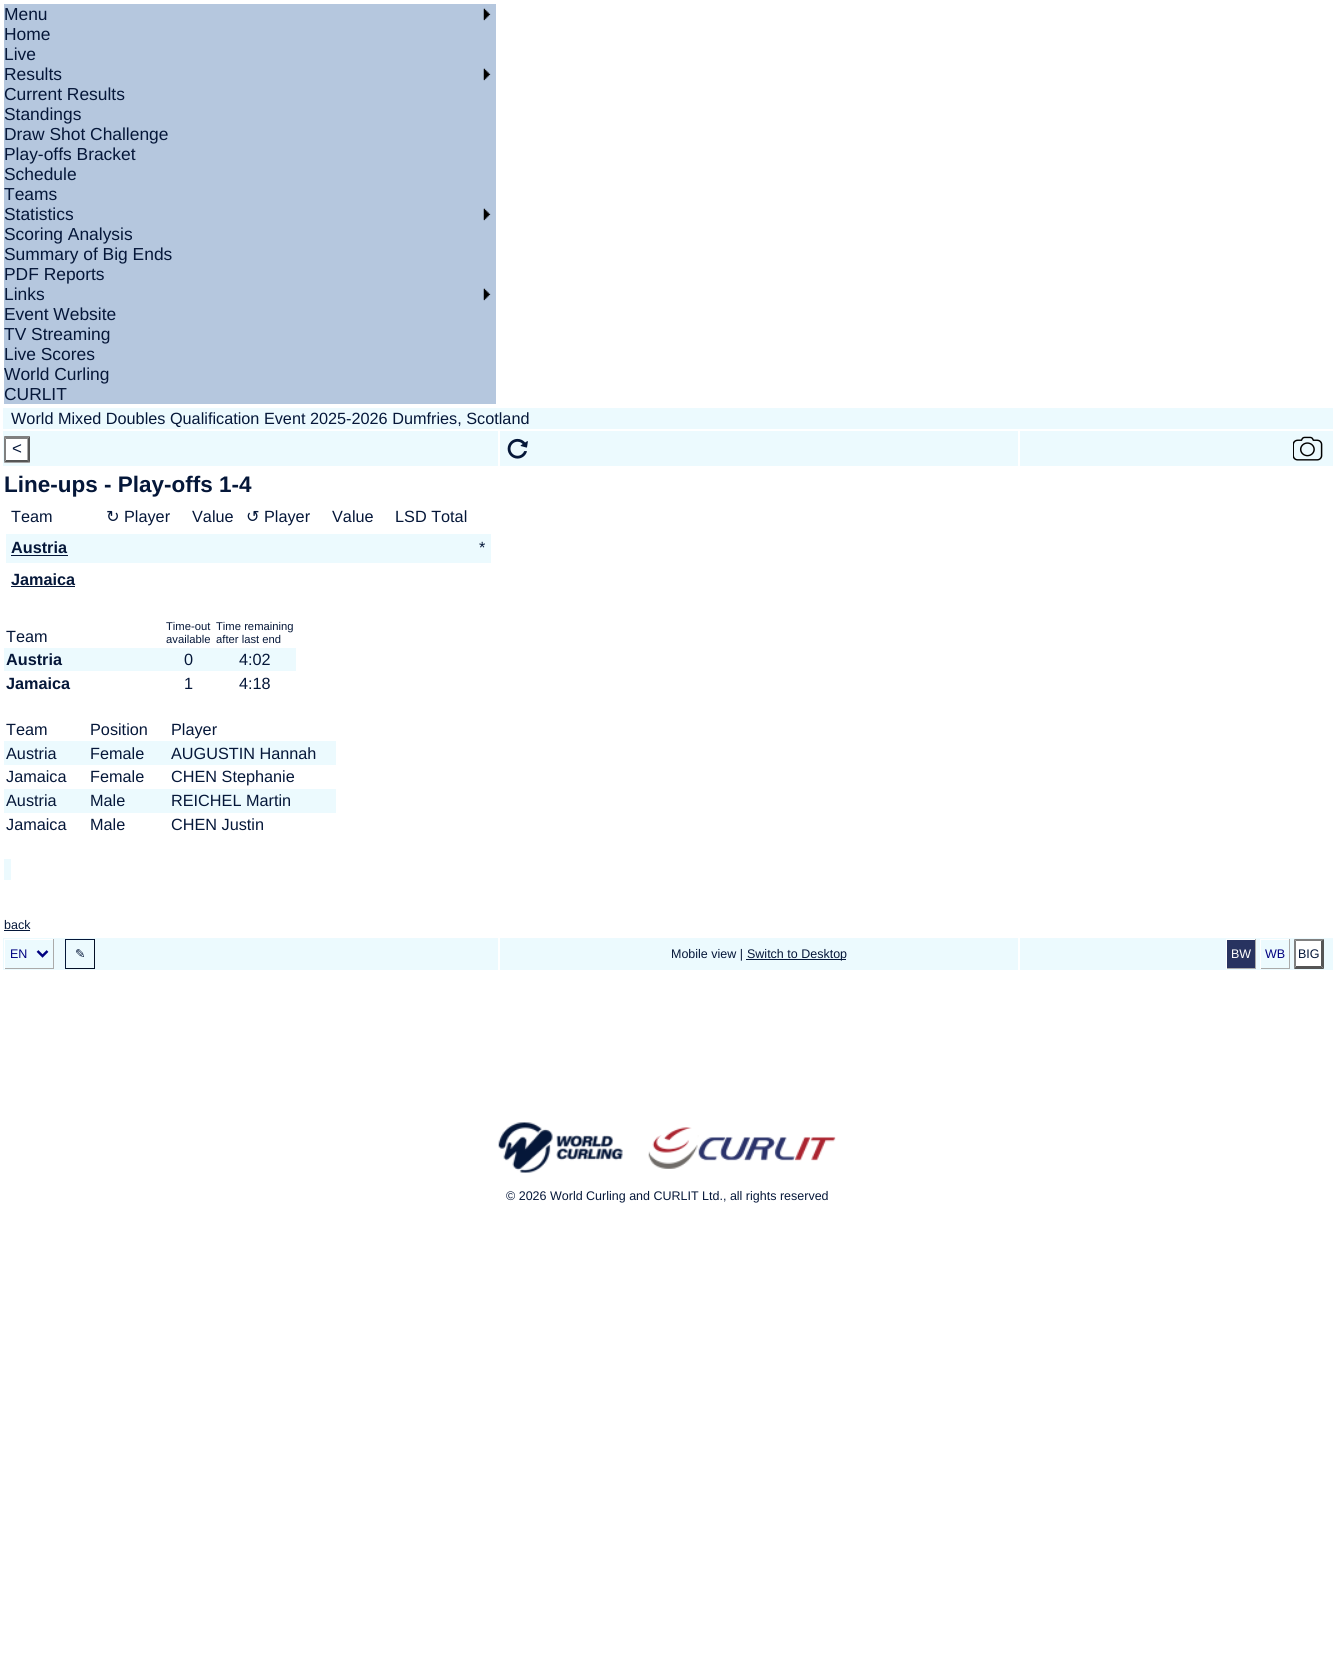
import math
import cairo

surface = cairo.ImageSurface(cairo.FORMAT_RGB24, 1335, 1669)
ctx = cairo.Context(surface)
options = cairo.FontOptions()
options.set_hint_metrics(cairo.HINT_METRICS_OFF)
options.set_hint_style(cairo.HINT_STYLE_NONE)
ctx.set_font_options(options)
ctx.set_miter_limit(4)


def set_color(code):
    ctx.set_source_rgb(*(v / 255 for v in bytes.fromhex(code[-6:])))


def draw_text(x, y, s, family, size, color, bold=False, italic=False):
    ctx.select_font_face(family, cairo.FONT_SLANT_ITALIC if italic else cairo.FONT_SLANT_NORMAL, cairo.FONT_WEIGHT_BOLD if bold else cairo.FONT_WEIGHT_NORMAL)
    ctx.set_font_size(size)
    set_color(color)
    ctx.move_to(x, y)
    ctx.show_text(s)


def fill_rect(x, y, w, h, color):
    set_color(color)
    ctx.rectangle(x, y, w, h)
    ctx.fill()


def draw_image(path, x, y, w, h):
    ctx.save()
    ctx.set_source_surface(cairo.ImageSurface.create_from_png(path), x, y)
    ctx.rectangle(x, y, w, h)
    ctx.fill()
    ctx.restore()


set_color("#ffffff")
ctx.paint()
fill_rect(4, 4, 492, 400, "#b5c7de")
draw_image("assets/img1.png", 483, 8, 8, 13)
draw_text(4, 20, "Menu", "Liberation Sans", 17.4, "#051739")
draw_text(4, 40, "Home", "Liberation Sans", 17.4, "#051739")
draw_text(4, 60, "Live", "Liberation Sans", 17.4, "#051739")
draw_image("assets/img1.png", 483, 68, 8, 13)
draw_text(4, 80, "Results", "Liberation Sans", 17.4, "#051739")
draw_text(4, 100, "Current Results", "Liberation Sans", 17.4, "#051739")
draw_text(4, 120, "Standings", "Liberation Sans", 17.4, "#051739")
draw_text(4, 140, "Draw Shot Challenge", "Liberation Sans", 17.4, "#051739")
draw_text(4, 160, "Play-offs Bracket", "Liberation Sans", 17.4, "#051739")
draw_text(4, 180, "Schedule", "Liberation Sans", 17.4, "#051739")
draw_text(4, 200, "Teams", "Liberation Sans", 17.4, "#051739")
draw_image("assets/img1.png", 483, 208, 8, 13)
draw_text(4, 220, "Statistics", "Liberation Sans", 17.4, "#051739")
draw_text(4, 240, "Scoring Analysis", "Liberation Sans", 17.4, "#051739")
draw_text(4, 260, "Summary of Big Ends", "Liberation Sans", 17.4, "#051739")
draw_text(4, 280, "PDF Reports", "Liberation Sans", 17.4, "#051739")
draw_image("assets/img2.png", 483, 288, 8, 13)
draw_text(4, 300, "Links", "Liberation Sans", 17.4, "#051739")
draw_text(4, 320, "Event Website", "Liberation Sans", 17.4, "#051739")
draw_text(4, 340, "TV Streaming", "Liberation Sans", 17.4, "#051739")
draw_text(4, 360, "Live Scores", "Liberation Sans", 17.4, "#051739")
draw_text(4, 380, "World Curling", "Liberation Sans", 17.4, "#051739")
draw_text(4, 400, "CURLIT", "Liberation Sans", 17.4, "#051739")
fill_rect(3, 408, 1330, 21, "#ecfafe")
draw_text(11, 424, "World Mixed Doubles Qualification Event 2025-2026 Dumfries, Scotland", "Liberation Sans", 16.25, "#051739")
fill_rect(3, 431, 495, 35, "#ecfafe")
fill_rect(4, 436, 26, 27, "#ffffff")
set_color("#808080")
ctx.new_path()
ctx.move_to(4, 436)
ctx.line_to(30, 436)
ctx.line_to(27.5, 439)
ctx.line_to(6, 439)
ctx.close_path()
ctx.fill()
set_color("#555555")
ctx.new_path()
ctx.move_to(30, 436)
ctx.line_to(30, 462.5)
ctx.line_to(27.5, 460)
ctx.line_to(27.5, 439)
ctx.close_path()
ctx.fill()
ctx.new_path()
ctx.move_to(30, 462.5)
ctx.line_to(4, 462.5)
ctx.line_to(6, 460)
ctx.line_to(27.5, 460)
ctx.close_path()
ctx.fill()
set_color("#808080")
ctx.new_path()
ctx.move_to(4, 462.5)
ctx.line_to(4, 436)
ctx.line_to(6, 439)
ctx.line_to(6, 460)
ctx.close_path()
ctx.fill()
draw_text(12, 454, "<", "Liberation Sans", 17, "#051739")
fill_rect(500, 431, 518, 35, "#ecfafe")
draw_image("assets/img3.png", 507, 438, 21, 21)
fill_rect(1020, 431, 313, 35, "#ecfafe")
draw_image("assets/img4.png", 1293, 436, 30, 25)
draw_text(4, 492, "Line-ups - Play-offs 1-4", "Liberation Sans", 22.5, "#051739", bold=True)
draw_text(11, 522, "Team", "Liberation Sans", 16.25, "#051739")
draw_text(106, 522, "↻", "DejaVu Sans", 16.25, "#051739")
draw_text(124, 522, "Player", "Liberation Sans", 16.25, "#051739")
draw_text(192, 522, "Value", "Liberation Sans", 16.25, "#051739")
draw_text(246, 522, "↺", "DejaVu Sans", 16.25, "#051739")
draw_text(264, 522, "Player", "Liberation Sans", 16.25, "#051739")
draw_text(332, 522, "Value", "Liberation Sans", 16.25, "#051739")
draw_text(395, 522, "LSD Total", "Liberation Sans", 16.25, "#051739")
fill_rect(6, 534, 485, 29, "#ecfafe")
draw_text(11, 553, "Austria", "Liberation Sans", 16.25, "#051739", bold=True)
fill_rect(11, 555, 57, 1, "#051739")
draw_text(479, 553, "*", "Liberation Sans", 16.25, "#051739")
draw_text(11, 585, "Jamaica", "Liberation Sans", 16.25, "#051739", bold=True)
fill_rect(11, 586, 64, 1, "#051739")
draw_text(6, 642, "Team", "Liberation Sans", 16.25, "#051739")
draw_text(166, 630, "Time-out", "Liberation Sans", 11.25, "#051739")
draw_text(166, 643, "available", "Liberation Sans", 11.25, "#051739")
draw_text(216, 630, "Time remaining", "Liberation Sans", 11.25, "#051739")
draw_text(216, 643, "after last end", "Liberation Sans", 11.25, "#051739")
fill_rect(4, 648, 292, 23, "#ecfafe")
draw_text(6, 665, "Austria", "Liberation Sans", 16.25, "#051739", bold=True)
draw_text(184, 665, "0", "Liberation Sans", 16.25, "#051739")
draw_text(239, 665, "4:02", "Liberation Sans", 16.25, "#051739")
draw_text(6, 689, "Jamaica", "Liberation Sans", 16.25, "#051739", bold=True)
draw_text(184, 689, "1", "Liberation Sans", 16.25, "#051739")
draw_text(239, 689, "4:18", "Liberation Sans", 16.25, "#051739")
draw_text(6, 735, "Team", "Liberation Sans", 16.25, "#051739")
draw_text(90, 735, "Position", "Liberation Sans", 16.25, "#051739")
draw_text(171, 735, "Player", "Liberation Sans", 16.25, "#051739")
fill_rect(4, 741, 332, 24, "#ecfafe")
draw_text(6, 759, "Austria", "Liberation Sans", 16.25, "#051739")
draw_text(90, 759, "Female", "Liberation Sans", 16.25, "#051739")
draw_text(171, 759, "AUGUSTIN Hannah", "Liberation Sans", 16.25, "#051739")
draw_text(6, 782, "Jamaica", "Liberation Sans", 16.25, "#051739")
draw_text(90, 782, "Female", "Liberation Sans", 16.25, "#051739")
draw_text(171, 782, "CHEN Stephanie", "Liberation Sans", 16.25, "#051739")
fill_rect(4, 789, 332, 24, "#ecfafe")
draw_text(6, 806, "Austria", "Liberation Sans", 16.25, "#051739")
draw_text(90, 806, "Male", "Liberation Sans", 16.25, "#051739")
draw_text(171, 806, "REICHEL Martin", "Liberation Sans", 16.25, "#051739")
draw_text(6, 830, "Jamaica", "Liberation Sans", 16.25, "#051739")
draw_text(90, 830, "Male", "Liberation Sans", 16.25, "#051739")
draw_text(171, 830, "CHEN Justin", "Liberation Sans", 16.25, "#051739")
fill_rect(4, 859, 7, 21, "#ecfafe")
draw_text(4, 929, "back", "Liberation Sans", 12.5, "#051739")
fill_rect(4, 930, 26, 1, "#051739")
fill_rect(3, 938, 495, 32, "#ecfafe")
fill_rect(4, 939, 50, 1, "#ffffff")
fill_rect(53, 939, 1, 30, "#aaaaaa")
fill_rect(4, 968, 50, 1, "#aaaaaa")
fill_rect(4, 939, 1, 30, "#ffffff")
ctx.new_path()
ctx.move_to(37.5, 951)
ctx.line_to(42.5, 956)
ctx.line_to(47.5, 951)
set_color("#000080")
ctx.set_line_width(2.5)
ctx.stroke()
draw_text(10, 958, "EN", "Liberation Sans", 12.5, "#000080")
fill_rect(65, 939, 30, 1, "#051739")
fill_rect(94, 939, 1, 30, "#030f26")
fill_rect(65, 968, 30, 1, "#030f26")
fill_rect(65, 939, 1, 30, "#051739")
draw_text(75, 958, "✎", "DejaVu Sans", 12.5, "#051739")
fill_rect(500, 938, 518, 32, "#ecfafe")
draw_text(671, 958, "Mobile view |", "Liberation Sans", 12.5, "#051739")
fill_rect(746, 959, 100, 1, "#051739")
draw_text(747, 958, "Switch to Desktop", "Liberation Sans", 12.5, "#051739")
fill_rect(1020, 938, 313, 32, "#ecfafe")
fill_rect(1227, 940, 28, 28, "#283360")
fill_rect(1226, 939, 30, 1, "#ffffff")
fill_rect(1255, 939, 1, 30, "#aaaaaa")
fill_rect(1226, 968, 30, 1, "#aaaaaa")
fill_rect(1226, 939, 1, 30, "#ffffff")
draw_text(1231, 958, "BW", "Liberation Sans", 12.5, "#ffffff")
fill_rect(1260, 939, 30, 1, "#ffffff")
fill_rect(1289, 939, 1, 30, "#aaaaaa")
fill_rect(1260, 968, 30, 1, "#aaaaaa")
fill_rect(1260, 939, 1, 30, "#ffffff")
draw_text(1265, 958, "WB", "Liberation Sans", 12.5, "#000080")
fill_rect(1294, 939, 30, 30, "#ffffff")
set_color("#808080")
ctx.new_path()
ctx.move_to(1294, 939)
ctx.line_to(1324, 939)
ctx.line_to(1321, 941)
ctx.line_to(1296, 941)
ctx.close_path()
ctx.fill()
set_color("#555555")
ctx.new_path()
ctx.move_to(1324, 939)
ctx.line_to(1324, 969)
ctx.line_to(1321, 966)
ctx.line_to(1321, 941)
ctx.close_path()
ctx.fill()
ctx.new_path()
ctx.move_to(1324, 969)
ctx.line_to(1294, 969)
ctx.line_to(1296, 966)
ctx.line_to(1321, 966)
ctx.close_path()
ctx.fill()
set_color("#808080")
ctx.new_path()
ctx.move_to(1294, 969)
ctx.line_to(1294, 939)
ctx.line_to(1296, 941)
ctx.line_to(1296, 966)
ctx.close_path()
ctx.fill()
draw_text(1298, 958, "BIG", "Liberation Sans", 12.5, "#051739")
draw_image("assets/img5.png", 498, 1122, 338, 51)
draw_text(506, 1200, "© 2026 World Curling and CURLIT Ltd., all rights reserved", "Liberation Sans", 12.5, "#051739")
surface.write_to_png("output.png")
